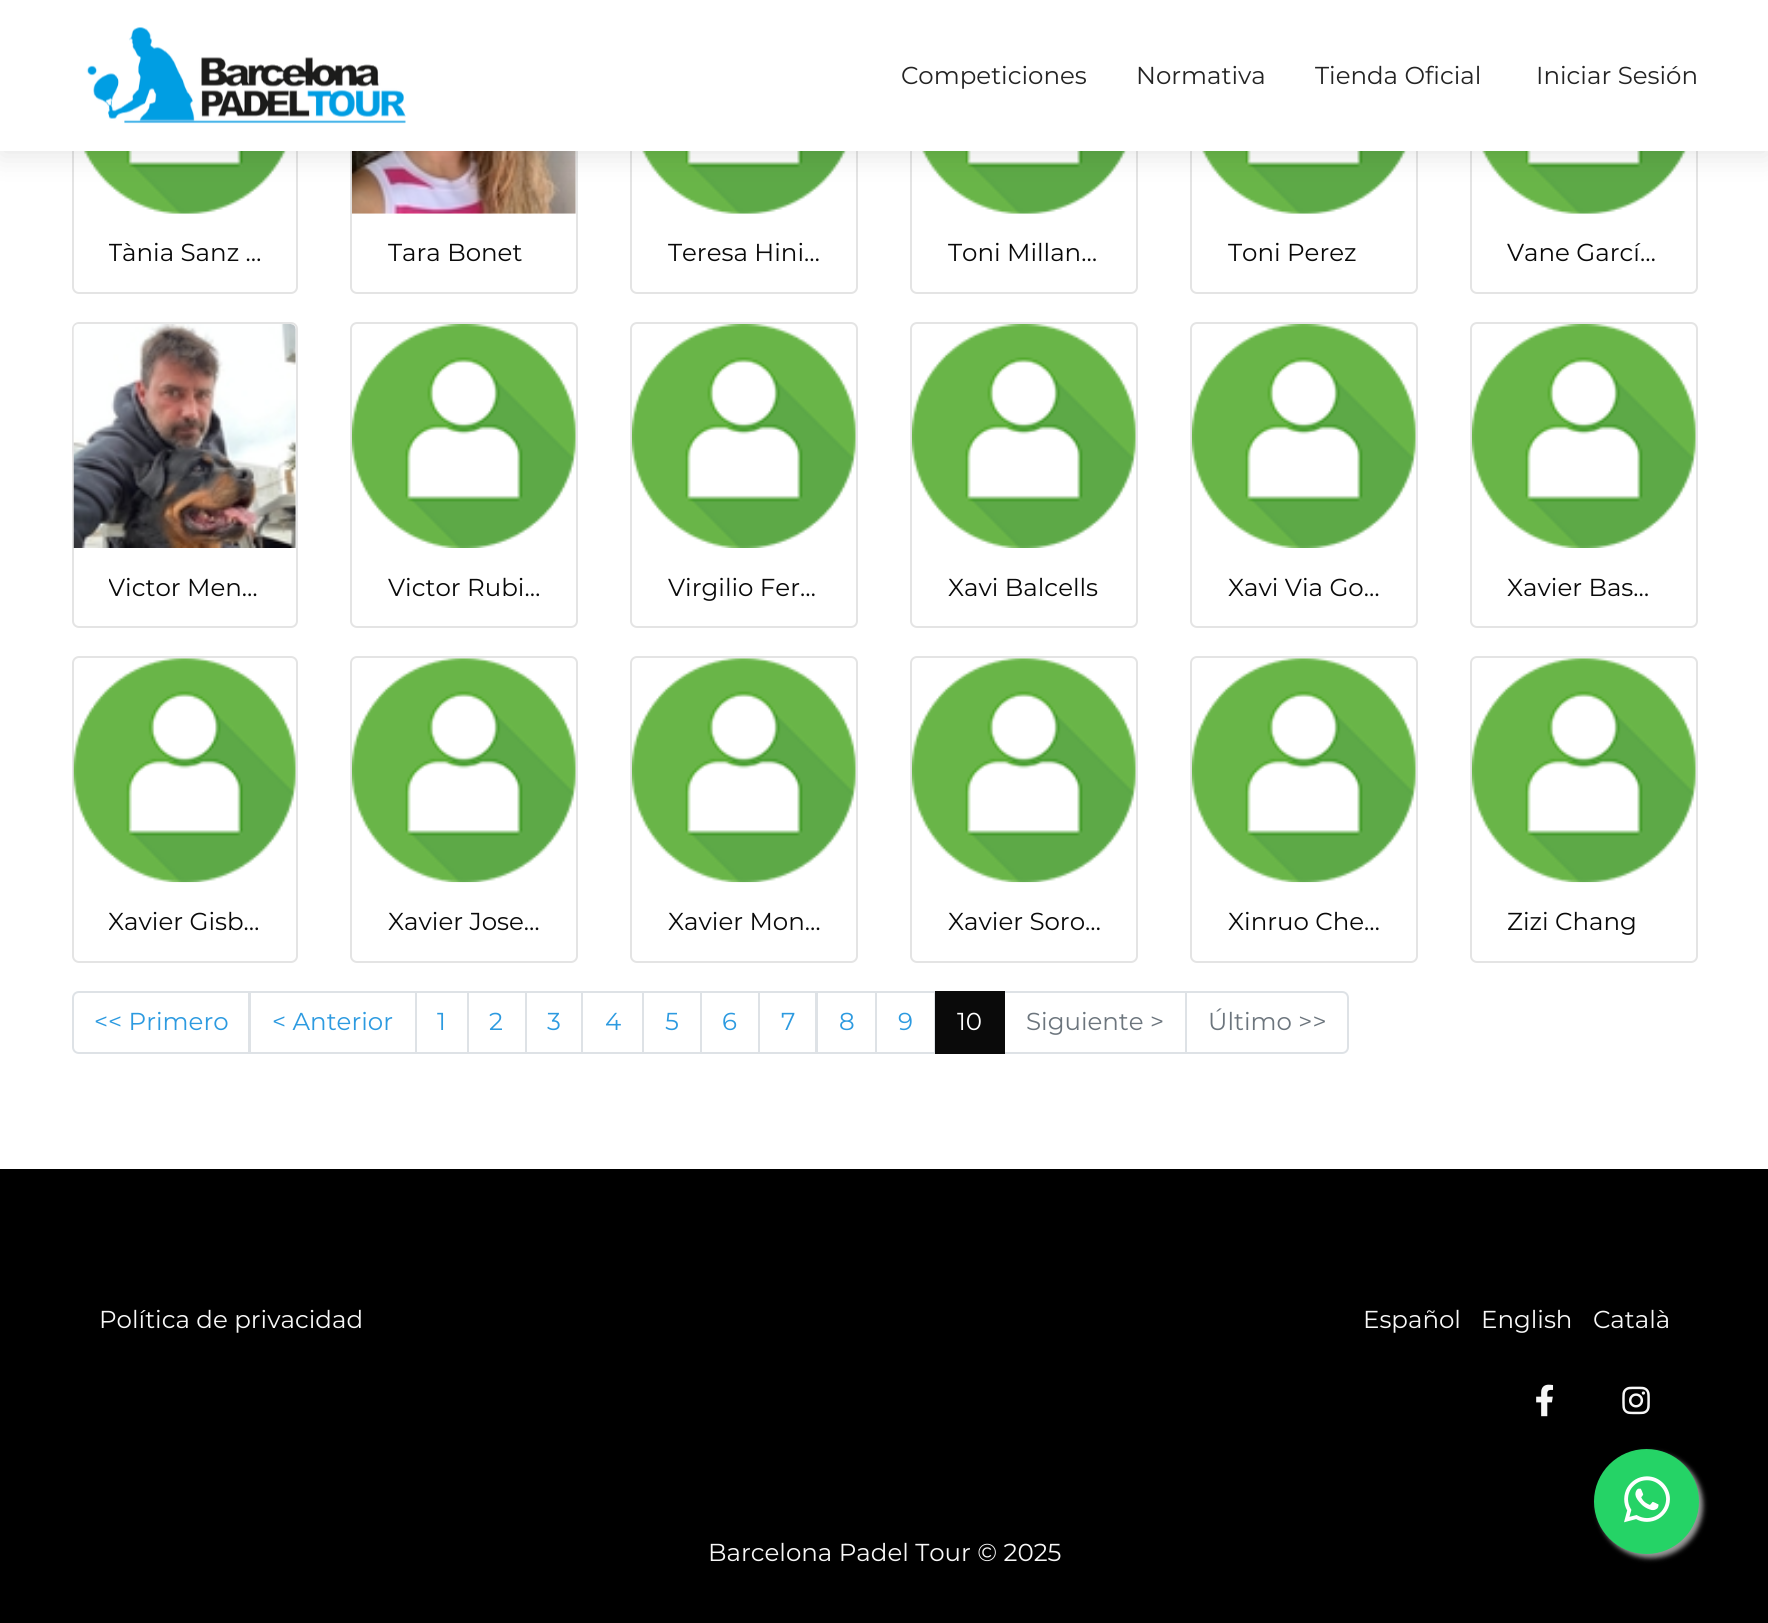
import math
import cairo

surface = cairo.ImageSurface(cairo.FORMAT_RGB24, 1768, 1623)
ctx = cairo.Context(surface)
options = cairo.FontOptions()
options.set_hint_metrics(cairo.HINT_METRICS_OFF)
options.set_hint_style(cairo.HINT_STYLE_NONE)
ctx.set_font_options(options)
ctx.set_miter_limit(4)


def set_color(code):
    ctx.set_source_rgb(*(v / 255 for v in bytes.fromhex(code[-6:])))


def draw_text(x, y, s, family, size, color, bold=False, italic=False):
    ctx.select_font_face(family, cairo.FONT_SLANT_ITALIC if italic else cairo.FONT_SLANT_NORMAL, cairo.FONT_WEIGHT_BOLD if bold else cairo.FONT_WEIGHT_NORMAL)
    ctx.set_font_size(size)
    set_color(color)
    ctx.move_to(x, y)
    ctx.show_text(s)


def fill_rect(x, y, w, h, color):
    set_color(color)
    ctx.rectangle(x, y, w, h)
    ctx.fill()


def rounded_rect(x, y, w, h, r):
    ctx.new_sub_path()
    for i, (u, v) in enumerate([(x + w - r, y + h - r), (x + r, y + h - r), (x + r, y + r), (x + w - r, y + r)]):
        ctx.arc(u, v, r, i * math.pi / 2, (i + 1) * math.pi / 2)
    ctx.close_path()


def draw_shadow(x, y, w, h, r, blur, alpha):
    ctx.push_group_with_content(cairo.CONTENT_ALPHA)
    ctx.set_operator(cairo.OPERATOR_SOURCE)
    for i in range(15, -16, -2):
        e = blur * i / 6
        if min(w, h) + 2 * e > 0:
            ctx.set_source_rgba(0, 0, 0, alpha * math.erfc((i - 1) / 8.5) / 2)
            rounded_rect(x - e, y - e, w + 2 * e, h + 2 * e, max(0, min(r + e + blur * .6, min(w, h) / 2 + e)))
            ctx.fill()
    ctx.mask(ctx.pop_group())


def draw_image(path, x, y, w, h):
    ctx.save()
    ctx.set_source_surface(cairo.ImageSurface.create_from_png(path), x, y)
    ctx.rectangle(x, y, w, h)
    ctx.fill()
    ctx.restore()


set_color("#ffffff")
ctx.paint()
rounded_rect(73, -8, 224, 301, 6)
set_color("#e4e4e4")
ctx.stroke()
draw_image("assets/img2.png", 83, 151, 204, 63)
rounded_rect(351, -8, 226, 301, 6)
ctx.stroke()
draw_image("assets/img3.png", 351, 151, 225, 63)
rounded_rect(631, -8, 226, 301, 6)
ctx.stroke()
draw_image("assets/img4.png", 642, 151, 205, 63)
rounded_rect(911, -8, 226, 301, 6)
ctx.stroke()
draw_image("assets/img4.png", 922, 151, 205, 63)
rounded_rect(1191, -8, 226, 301, 6)
ctx.stroke()
draw_image("assets/img4.png", 1202, 151, 205, 63)
rounded_rect(1471, -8, 226, 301, 6)
ctx.stroke()
draw_image("assets/img4.png", 1482, 151, 205, 63)
set_color("#000000")
draw_shadow(0, 5, 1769, 151, 0, 14, 0.1)
fill_rect(0, 0, 1768, 151, "#ffffff")
draw_image("assets/img1.png", 86, 27, 320, 97)
draw_text(901, 84, "Competiciones", "Montserrat Thin", 24.5, "#242424")
draw_text(1136, 84, "Normativa", "Montserrat Thin", 24.5, "#242424")
draw_text(1315, 84, "Tienda Oficial", "Montserrat Thin", 24.5, "#242424")
draw_text(1536, 84, "Iniciar Sesión", "Montserrat Thin", 24.5, "#242424")
ctx.save()
ctx.rectangle(109, 235, 152, 36)
ctx.clip()
draw_text(108, 261, "Tània Sanz …", "Montserrat Thin", 24.5, "#0a0a0a")
ctx.restore()
draw_text(388, 261, "Tara Bonet", "Montserrat Thin", 24.5, "#0a0a0a")
draw_text(668, 261, "Teresa Hini…", "Montserrat Thin", 24.5, "#0a0a0a")
draw_text(948, 261, "Toni Millan…", "Montserrat Thin", 24.5, "#0a0a0a")
draw_text(1228, 261, "Toni Perez", "Montserrat Thin", 24.5, "#0a0a0a")
draw_text(1507, 261, "Vane Garcí…", "Montserrat Thin", 24.5, "#0a0a0a")
rounded_rect(73, 323, 224, 304, 6)
set_color("#e4e4e4")
ctx.stroke()
draw_image("assets/img5.png", 73, 324, 223, 224)
ctx.save()
ctx.rectangle(109, 569, 152, 37)
ctx.clip()
draw_text(108, 596, "Victor Men…", "Montserrat Thin", 24.5, "#0a0a0a")
ctx.restore()
rounded_rect(351, 323, 226, 304, 6)
ctx.stroke()
draw_image("assets/img6.png", 351, 324, 225, 224)
draw_text(388, 596, "Victor Rubi…", "Montserrat Thin", 24.5, "#0a0a0a")
rounded_rect(631, 323, 226, 304, 6)
set_color("#e4e4e4")
ctx.stroke()
draw_image("assets/img6.png", 631, 324, 225, 224)
draw_text(668, 596, "Virgilio Fer…", "Montserrat Thin", 24.5, "#0a0a0a")
rounded_rect(911, 323, 226, 304, 6)
set_color("#e4e4e4")
ctx.stroke()
draw_image("assets/img6.png", 911, 324, 225, 224)
draw_text(948, 596, "Xavi Balcells", "Montserrat Thin", 24.5, "#0a0a0a")
rounded_rect(1191, 323, 226, 304, 6)
set_color("#e4e4e4")
ctx.stroke()
draw_image("assets/img6.png", 1191, 324, 225, 224)
draw_text(1228, 596, "Xavi Via Go…", "Montserrat Thin", 24.5, "#0a0a0a")
rounded_rect(1471, 323, 226, 304, 6)
set_color("#e4e4e4")
ctx.stroke()
draw_image("assets/img6.png", 1471, 324, 225, 224)
draw_text(1507, 596, "Xavier Bas…", "Montserrat Thin", 24.5, "#0a0a0a")
rounded_rect(73, 657, 224, 305, 6)
set_color("#e4e4e4")
ctx.stroke()
draw_image("assets/img7.png", 73, 658, 223, 225)
ctx.save()
ctx.rectangle(109, 903, 152, 37)
ctx.clip()
draw_text(108, 930, "Xavier Gisb…", "Montserrat Thin", 24.5, "#0a0a0a")
ctx.restore()
rounded_rect(351, 657, 226, 305, 6)
ctx.stroke()
draw_image("assets/img8.png", 351, 658, 225, 225)
draw_text(388, 930, "Xavier Jose…", "Montserrat Thin", 24.5, "#0a0a0a")
rounded_rect(631, 657, 226, 305, 6)
set_color("#e4e4e4")
ctx.stroke()
draw_image("assets/img8.png", 631, 658, 225, 225)
draw_text(668, 930, "Xavier Mon…", "Montserrat Thin", 24.5, "#0a0a0a")
rounded_rect(911, 657, 226, 305, 6)
set_color("#e4e4e4")
ctx.stroke()
draw_image("assets/img8.png", 911, 658, 225, 225)
draw_text(948, 930, "Xavier Soro…", "Montserrat Thin", 24.5, "#0a0a0a")
rounded_rect(1191, 657, 226, 305, 6)
set_color("#e4e4e4")
ctx.stroke()
draw_image("assets/img8.png", 1191, 658, 225, 225)
draw_text(1228, 930, "Xinruo Che…", "Montserrat Thin", 24.5, "#0a0a0a")
rounded_rect(1471, 657, 226, 305, 6)
set_color("#e4e4e4")
ctx.stroke()
draw_image("assets/img8.png", 1471, 658, 225, 225)
draw_text(1507, 930, "Zizi Chang", "Montserrat Thin", 24.5, "#0a0a0a")
ctx.new_path()
ctx.move_to(79, 992)
ctx.line_to(249, 992)
ctx.line_to(249, 1053)
ctx.line_to(79, 1053)
ctx.curve_to(75.5, 1053, 73, 1050.5, 73, 1047)
ctx.line_to(73, 998)
ctx.curve_to(73, 994.5, 75.5, 992, 79, 992)
ctx.close_path()
set_color("#dee2e6")
ctx.stroke()
draw_text(94, 1030, "<< Primero", "Montserrat Thin", 24.5, "#2c9ae0")
ctx.rectangle(250, 992, 166, 61)
set_color("#dee2e6")
ctx.stroke()
draw_text(272, 1030, "< Anterior", "Montserrat Thin", 24.5, "#2c9ae0")
ctx.rectangle(416, 992, 52, 61)
set_color("#dee2e6")
ctx.stroke()
draw_text(437, 1030, "1", "Montserrat Thin", 24.5, "#2c9ae0")
ctx.rectangle(468, 992, 58, 61)
set_color("#dee2e6")
ctx.stroke()
draw_text(489, 1030, "2", "Montserrat Thin", 24.5, "#2c9ae0")
ctx.rectangle(526, 992, 56, 61)
set_color("#dee2e6")
ctx.stroke()
draw_text(547, 1030, "3", "Montserrat Thin", 24.5, "#2c9ae0")
ctx.rectangle(582, 992, 61, 61)
set_color("#dee2e6")
ctx.stroke()
draw_text(605, 1030, "4", "Montserrat Thin", 24.5, "#2c9ae0")
ctx.rectangle(643, 992, 58, 61)
set_color("#dee2e6")
ctx.stroke()
draw_text(665, 1030, "5", "Montserrat Thin", 24.5, "#2c9ae0")
ctx.rectangle(701, 992, 58, 61)
set_color("#dee2e6")
ctx.stroke()
draw_text(722, 1030, "6", "Montserrat Thin", 24.5, "#2c9ae0")
ctx.rectangle(759, 992, 57, 61)
set_color("#dee2e6")
ctx.stroke()
draw_text(781, 1030, "7", "Montserrat Thin", 24.5, "#2c9ae0")
ctx.rectangle(817, 992, 59, 61)
set_color("#dee2e6")
ctx.stroke()
draw_text(839, 1030, "8", "Montserrat Thin", 24.5, "#2c9ae0")
ctx.rectangle(876, 992, 59, 61)
set_color("#dee2e6")
ctx.stroke()
draw_text(898, 1030, "9", "Montserrat Thin", 24.5, "#2c9ae0")
ctx.rectangle(1004, 992, 182, 61)
set_color("#dee2e6")
ctx.stroke()
fill_rect(935, 991, 70, 63, "#0a0a0a")
draw_text(957, 1030, "10", "Montserrat Thin", 24.5, "#ffffff")
draw_text(1026, 1030, "Siguiente >", "Montserrat Thin", 24.5, "#6c757d")
set_color("#ffffff")
ctx.new_path()
ctx.move_to(1186, 992)
ctx.line_to(1342, 992)
ctx.curve_to(1345.5, 992, 1348, 994.5, 1348, 998)
ctx.line_to(1348, 1047)
ctx.curve_to(1348, 1050.5, 1345.5, 1053, 1342, 1053)
ctx.line_to(1186, 1053)
ctx.close_path()
ctx.fill_preserve()
set_color("#dee2e6")
ctx.stroke()
draw_text(1208, 1030, "Último >>", "Montserrat Thin", 24.5, "#6c757d")
fill_rect(0, 1169, 1768, 454, "#000000")
draw_text(99, 1328, "Política de privacidad", "Montserrat Thin", 24.5, "#f7f7f7")
draw_text(1363, 1328, "Español", "Montserrat Thin", 24.5, "#f7f7f7")
draw_text(1481, 1328, "English", "Montserrat Thin", 24.5, "#f7f7f7")
draw_text(1593, 1328, "Català", "Montserrat Thin", 24.5, "#f7f7f7")
draw_image("assets/img9.png", 1536, 1384, 18, 33)
draw_image("assets/img10.png", 1622, 1386, 28, 29)
draw_text(708, 1561, "Barcelona Padel Tour © 2025", "Montserrat Thin", 24.5, "#f7f7f7")
set_color("#999999")
draw_shadow(1598, 1453, 105, 105, 52.5, 2.5, 1)
set_color("#25d366")
ctx.arc(1646.5, 1501.5, 52.5, 0, 2 * math.pi)
ctx.fill()
draw_image("assets/img11.png", 1624, 1476, 46, 47)
surface.write_to_png("output.png")
